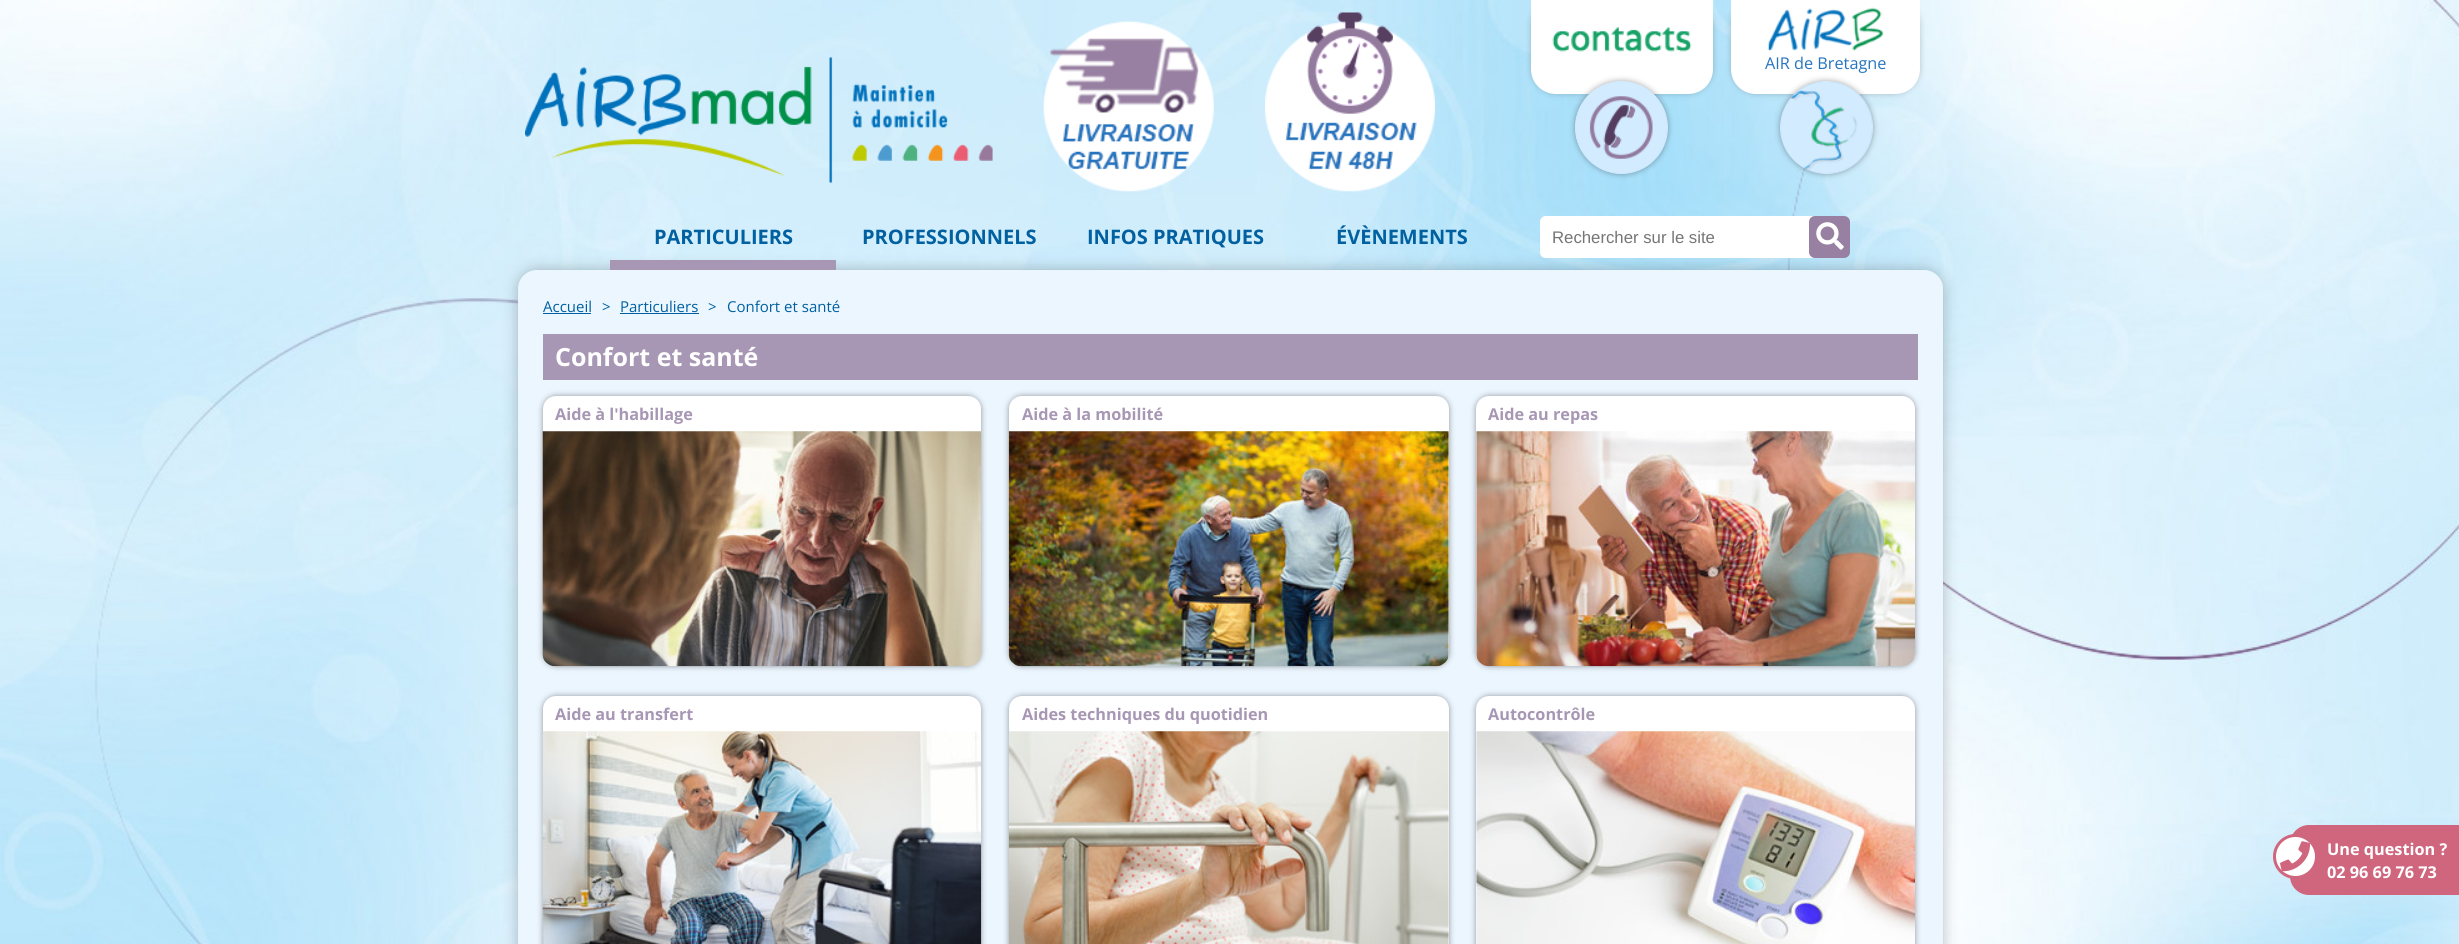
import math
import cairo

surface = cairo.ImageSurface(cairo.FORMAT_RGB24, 2459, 944)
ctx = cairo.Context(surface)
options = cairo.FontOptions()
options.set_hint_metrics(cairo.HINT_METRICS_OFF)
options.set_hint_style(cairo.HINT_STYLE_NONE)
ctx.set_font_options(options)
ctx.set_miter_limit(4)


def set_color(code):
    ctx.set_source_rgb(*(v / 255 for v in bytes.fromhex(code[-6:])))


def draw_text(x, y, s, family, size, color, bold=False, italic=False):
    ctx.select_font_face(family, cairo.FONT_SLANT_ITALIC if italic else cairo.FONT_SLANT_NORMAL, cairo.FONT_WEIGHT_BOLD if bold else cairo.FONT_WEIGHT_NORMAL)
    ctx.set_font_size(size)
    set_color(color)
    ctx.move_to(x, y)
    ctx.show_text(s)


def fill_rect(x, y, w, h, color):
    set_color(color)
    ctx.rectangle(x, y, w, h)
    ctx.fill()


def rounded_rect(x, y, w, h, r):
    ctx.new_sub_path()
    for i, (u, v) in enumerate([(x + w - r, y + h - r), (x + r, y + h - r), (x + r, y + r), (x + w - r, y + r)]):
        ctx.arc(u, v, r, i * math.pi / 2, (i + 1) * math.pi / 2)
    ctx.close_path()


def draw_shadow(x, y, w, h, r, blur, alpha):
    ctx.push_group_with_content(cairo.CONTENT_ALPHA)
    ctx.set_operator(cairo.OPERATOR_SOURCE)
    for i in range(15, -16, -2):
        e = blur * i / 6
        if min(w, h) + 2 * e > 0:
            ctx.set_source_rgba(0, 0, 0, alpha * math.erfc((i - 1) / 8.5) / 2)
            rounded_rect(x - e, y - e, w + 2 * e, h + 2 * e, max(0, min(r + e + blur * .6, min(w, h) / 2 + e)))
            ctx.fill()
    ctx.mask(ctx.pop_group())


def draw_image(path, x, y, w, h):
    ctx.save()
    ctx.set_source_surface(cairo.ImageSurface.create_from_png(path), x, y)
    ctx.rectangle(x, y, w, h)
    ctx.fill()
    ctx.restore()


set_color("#ffffff")
ctx.paint()
draw_image("assets/img1.png", 0, 0, 2459, 944)
draw_image("assets/img2.png", 525, 57, 468, 126)
draw_image("assets/img3.png", 1043, 21, 171, 171)
draw_image("assets/img4.png", 1265, 12, 170, 180)
set_color("#000000")
draw_shadow(1531, 0, 182, 94, 25, 3, 0.2)
set_color("#ffffff")
ctx.new_path()
ctx.move_to(1531, 0)
ctx.line_to(1713, 0)
ctx.line_to(1713, 69)
ctx.curve_to(1713, 83, 1702, 94, 1688, 94)
ctx.line_to(1556, 94)
ctx.curve_to(1542, 94, 1531, 83, 1531, 69)
ctx.close_path()
ctx.fill()
draw_image("assets/img5.png", 1552, 27, 140, 25)
set_color("#000000")
draw_shadow(1575, 81, 93, 93, 46.5, 3, 0.35)
set_color("#d2ebff")
ctx.arc(1621.5, 127.5, 46.5, 0, 2 * math.pi)
ctx.fill()
draw_image("assets/img6.png", 1575, 82, 92, 92)
set_color("#000000")
draw_shadow(1731, 0, 189, 94, 25, 3, 0.2)
set_color("#ffffff")
ctx.new_path()
ctx.move_to(1731, 0)
ctx.line_to(1920, 0)
ctx.line_to(1920, 69)
ctx.curve_to(1920, 83, 1909, 94, 1895, 94)
ctx.line_to(1756, 94)
ctx.curve_to(1742, 94, 1731, 83, 1731, 69)
ctx.close_path()
ctx.fill()
draw_image("assets/img7.png", 1768, 7, 116, 44)
draw_text(1765, 69, "AIR de Bretagne", "Open Sans", 16.25, "#2774be")
set_color("#000000")
draw_shadow(1780, 81, 93, 93, 46.5, 3, 0.35)
set_color("#d2ebff")
ctx.arc(1826.5, 127.5, 46.5, 0, 2 * math.pi)
ctx.fill()
draw_image("assets/img8.png", 1781, 81, 91, 92)
set_color("#000000")
draw_shadow(518, 270, 1425, 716, 19, 7.5, 0.25)
fill_rect(610, 260, 226, 10, "#a797b4")
draw_text(654, 244, "PARTICULIERS", "Open Sans", 20, "#0060a0", bold=True)
draw_text(862, 244, "PROFESSIONNELS", "Open Sans", 20, "#0060a0", bold=True)
draw_text(1087, 244, "INFOS PRATIQUES", "Open Sans", 20, "#0060a0", bold=True)
draw_text(1336, 244, "ÉVÈNEMENTS", "Open Sans", 20, "#0060a0", bold=True)
set_color("#ffffff")
ctx.new_path()
ctx.move_to(1546, 216)
ctx.line_to(1820, 216)
ctx.line_to(1820, 258)
ctx.line_to(1546, 258)
ctx.curve_to(1542.5, 258, 1540, 255.5, 1540, 252)
ctx.line_to(1540, 222)
ctx.curve_to(1540, 218.5, 1542.5, 216, 1546, 216)
ctx.close_path()
ctx.fill()
draw_text(1552, 243, "Rechercher sur le site", "Liberation Sans", 16.75, "#757575")
set_color("#9880a2")
rounded_rect(1809, 216, 41, 42, 6)
ctx.fill()
draw_image("assets/img9.png", 1816, 222, 28, 28)
set_color("#ecf6ff")
rounded_rect(518, 270, 1425, 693, 19)
ctx.fill()
draw_text(543, 312, "Accueil", "Open Sans", 15, "#0060a0")
fill_rect(543, 313, 48, 1, "#0060a0")
draw_text(602, 312, ">", "Open Sans", 15, "#0060a0")
draw_text(620, 312, "Particuliers", "Open Sans", 15, "#0060a0")
fill_rect(620, 313, 79, 1, "#0060a0")
draw_text(708, 312, ">", "Open Sans", 15, "#0060a0")
draw_text(727, 312, "Confort et santé", "Open Sans", 15, "#0060a0")
fill_rect(543, 334, 1375, 46, "#a797b4")
draw_text(555, 366, "Confort et santé", "Open Sans", 25, "#ffffff", bold=True)
set_color("#000000")
draw_shadow(543, 396, 438, 270, 13, 3, 0.4)
set_color("#ffffff")
rounded_rect(543, 396, 438, 270, 13)
ctx.fill()
draw_text(555, 420, "Aide à l'habillage", "Open Sans", 16.25, "#a797b4", bold=True)
draw_image("assets/img10.png", 542, 431, 440, 236)
set_color("#000000")
draw_shadow(1009, 396, 440, 270, 13, 3, 0.4)
set_color("#ffffff")
rounded_rect(1009, 396, 440, 270, 13)
ctx.fill()
draw_text(1022, 420, "Aide à la mobilité", "Open Sans", 16.25, "#a797b4", bold=True)
draw_image("assets/img11.png", 1008, 431, 441, 236)
set_color("#000000")
draw_shadow(1476, 396, 439, 270, 13, 3, 0.4)
set_color("#ffffff")
rounded_rect(1476, 396, 439, 270, 13)
ctx.fill()
draw_text(1488, 420, "Aide au repas", "Open Sans", 16.25, "#a797b4", bold=True)
draw_image("assets/img12.png", 1476, 431, 439, 236)
set_color("#000000")
draw_shadow(543, 696, 438, 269, 13, 3, 0.4)
set_color("#ffffff")
rounded_rect(543, 696, 438, 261, 13)
ctx.fill()
draw_text(555, 720, "Aide au transfert", "Open Sans", 16.25, "#a797b4", bold=True)
draw_image("assets/img13.png", 542, 731, 440, 213)
set_color("#000000")
draw_shadow(1009, 696, 440, 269, 13, 3, 0.4)
set_color("#ffffff")
rounded_rect(1009, 696, 440, 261, 13)
ctx.fill()
draw_text(1022, 720, "Aides techniques du quotidien", "Open Sans", 16.25, "#a797b4", bold=True)
draw_image("assets/img14.png", 1008, 731, 441, 213)
set_color("#000000")
draw_shadow(1476, 696, 439, 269, 13, 3, 0.4)
set_color("#ffffff")
rounded_rect(1476, 696, 439, 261, 13)
ctx.fill()
draw_text(1488, 720, "Autocontrôle", "Open Sans", 16.25, "#a797b4", bold=True)
draw_image("assets/img15.png", 1476, 731, 439, 213)
set_color("#cf667e")
ctx.new_path()
ctx.move_to(2309, 825)
ctx.line_to(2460, 825)
ctx.line_to(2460, 895)
ctx.line_to(2309, 895)
ctx.curve_to(2298.5, 895, 2290, 886.5, 2290, 876)
ctx.line_to(2290, 844)
ctx.curve_to(2290, 833.5, 2298.5, 825, 2309, 825)
ctx.close_path()
ctx.fill()
set_color("#ffffff")
ctx.arc(2295.5, 856.5, 21, 0, 2 * math.pi)
ctx.fill_preserve()
set_color("#cf667e")
ctx.set_line_width(3)
ctx.stroke()
draw_image("assets/img16.png", 2280, 841, 31, 31)
draw_text(2327, 855, "Une question ?", "Open Sans", 16.25, "#ffffff", bold=True)
draw_text(2327, 878, "02 96 69 76 73", "Open Sans", 16.25, "#ffffff", bold=True)
surface.write_to_png("output.png")
